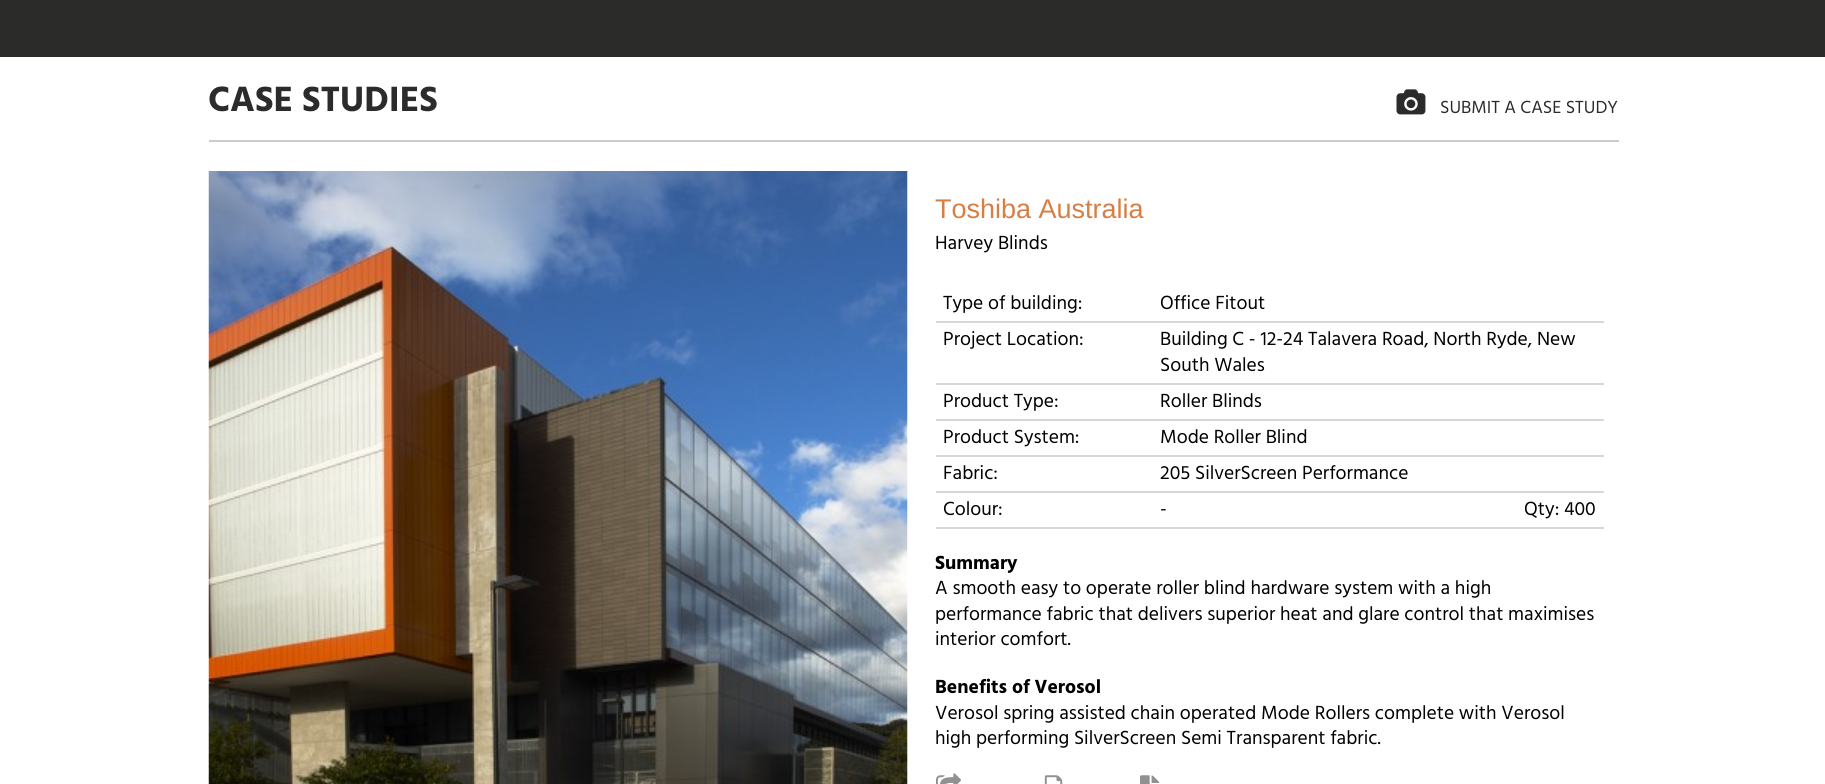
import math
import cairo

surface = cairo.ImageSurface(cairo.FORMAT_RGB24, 1825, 784)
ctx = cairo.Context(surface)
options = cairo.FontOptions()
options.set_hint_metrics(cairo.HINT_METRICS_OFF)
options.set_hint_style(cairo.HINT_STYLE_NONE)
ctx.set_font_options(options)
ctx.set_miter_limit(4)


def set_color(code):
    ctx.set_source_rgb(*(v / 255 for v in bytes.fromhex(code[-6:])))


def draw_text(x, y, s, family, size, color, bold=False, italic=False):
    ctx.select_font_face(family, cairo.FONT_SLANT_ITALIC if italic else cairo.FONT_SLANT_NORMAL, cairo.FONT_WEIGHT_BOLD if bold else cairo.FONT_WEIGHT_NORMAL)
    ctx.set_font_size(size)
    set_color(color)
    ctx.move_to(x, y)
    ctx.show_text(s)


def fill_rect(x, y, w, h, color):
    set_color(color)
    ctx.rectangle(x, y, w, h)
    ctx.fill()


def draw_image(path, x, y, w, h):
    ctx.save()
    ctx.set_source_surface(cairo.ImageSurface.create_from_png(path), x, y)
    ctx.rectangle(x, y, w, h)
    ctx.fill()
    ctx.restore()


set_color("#ffffff")
ctx.paint()
fill_rect(0, 0, 1825, 57, "#2b2b29")
fill_rect(209, 140, 1410, 2, "#cccccc")
draw_text(208, 111, "CASE STUDIES", "Hind", 36, "#2b2b2b", bold=True)
draw_image("assets/img1.png", 1396, 89, 30, 26)
draw_text(1440, 113, "SUBMIT A CASE STUDY", "Hind", 18, "#2b2b2b")
draw_image("assets/img2.png", 208, 171, 700, 613)
draw_text(935, 218, "Toshiba Australia", "Liberation Sans", 27, "#d67e43")
draw_text(935, 249, "Harvey Blinds", "Hind", 19.5, "#000000")
fill_rect(936, 321, 668, 2, "#d8d8d8")
draw_text(943, 309, "Type of building:", "Hind", 19.5, "#000000")
draw_text(1160, 309, "Office Fitout", "Hind", 19.5, "#000000")
fill_rect(936, 383, 668, 2, "#d8d8d8")
draw_text(943, 345, "Project Location:", "Hind", 19.5, "#000000")
draw_text(1160, 345, "Building C - 12-24 Talavera Road, North Ryde, New", "Hind", 19.5, "#000000")
draw_text(1160, 371, "South Wales", "Hind", 19.5, "#000000")
fill_rect(936, 419, 668, 2, "#d8d8d8")
draw_text(943, 407, "Product Type:", "Hind", 19.5, "#000000")
draw_text(1160, 407, "Roller Blinds", "Hind", 19.5, "#000000")
fill_rect(936, 455, 668, 2, "#d8d8d8")
draw_text(943, 443, "Product System:", "Hind", 19.5, "#000000")
draw_text(1160, 443, "Mode Roller Blind", "Hind", 19.5, "#000000")
fill_rect(936, 491, 668, 2, "#d8d8d8")
draw_text(943, 479, "Fabric:", "Hind", 19.5, "#000000")
draw_text(1160, 479, "205 SilverScreen Performance", "Hind", 19.5, "#000000")
fill_rect(936, 527, 668, 2, "#d8d8d8")
draw_text(943, 515, "Colour:", "Hind", 19.5, "#000000")
draw_text(1160, 515, "-", "Hind", 19.5, "#000000")
draw_text(1524, 515, "Qty: 400", "Hind", 19.5, "#000000")
draw_text(935, 569, "Summary", "Hind", 19.5, "#000000", bold=True)
draw_text(935, 594, "A smooth easy to operate roller blind hardware system with a high", "Hind", 19.5, "#000000")
draw_text(935, 620, "performance fabric that delivers superior heat and glare control that maximises", "Hind", 19.5, "#000000")
draw_text(935, 645, "interior comfort.", "Hind", 19.5, "#000000")
draw_text(935, 693, "Benefits of Verosol", "Hind", 19.5, "#000000", bold=True)
draw_text(935, 719, "Verosol spring assisted chain operated Mode Rollers complete with Verosol", "Hind", 19.5, "#000000")
draw_text(935, 744, "high performing SilverScreen Semi Transparent fabric.", "Hind", 19.5, "#000000")
draw_image("assets/img3.png", 936, 773, 25, 11)
draw_image("assets/img4.png", 1044, 775, 19, 9)
draw_image("assets/img5.png", 1140, 775, 20, 9)
surface.write_to_png("output.png")
